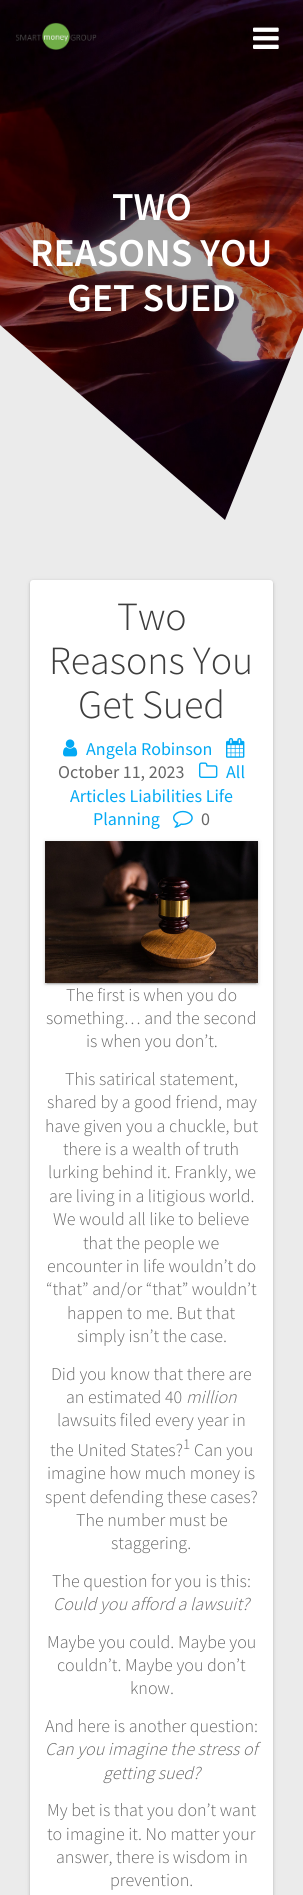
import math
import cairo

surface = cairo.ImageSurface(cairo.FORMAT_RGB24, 303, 1895)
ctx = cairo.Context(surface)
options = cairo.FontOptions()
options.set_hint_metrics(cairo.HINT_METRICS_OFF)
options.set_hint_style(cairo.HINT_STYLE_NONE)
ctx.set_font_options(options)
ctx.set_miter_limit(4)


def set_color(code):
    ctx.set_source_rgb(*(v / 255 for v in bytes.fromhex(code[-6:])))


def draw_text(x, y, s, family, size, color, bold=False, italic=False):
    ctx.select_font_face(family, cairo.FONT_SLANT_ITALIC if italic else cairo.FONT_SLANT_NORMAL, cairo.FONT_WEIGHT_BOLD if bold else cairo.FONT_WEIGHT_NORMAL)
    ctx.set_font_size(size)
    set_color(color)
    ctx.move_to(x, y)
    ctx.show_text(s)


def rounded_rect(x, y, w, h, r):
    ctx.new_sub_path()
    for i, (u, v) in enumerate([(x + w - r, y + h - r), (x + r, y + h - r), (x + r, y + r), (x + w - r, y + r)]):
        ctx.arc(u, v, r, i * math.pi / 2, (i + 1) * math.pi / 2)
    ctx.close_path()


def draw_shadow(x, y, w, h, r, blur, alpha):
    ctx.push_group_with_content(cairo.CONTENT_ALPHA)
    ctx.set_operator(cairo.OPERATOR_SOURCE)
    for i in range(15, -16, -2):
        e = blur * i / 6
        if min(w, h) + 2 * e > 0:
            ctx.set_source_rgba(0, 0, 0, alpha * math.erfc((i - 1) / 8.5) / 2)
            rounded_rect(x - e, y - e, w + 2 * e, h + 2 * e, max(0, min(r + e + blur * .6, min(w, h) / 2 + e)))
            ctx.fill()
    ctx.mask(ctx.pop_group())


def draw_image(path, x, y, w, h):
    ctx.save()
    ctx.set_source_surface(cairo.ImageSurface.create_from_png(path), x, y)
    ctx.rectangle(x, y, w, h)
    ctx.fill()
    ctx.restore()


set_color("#ebebeb")
ctx.paint()
draw_image("assets/img3.png", 0, 0, 303, 520)
draw_image("assets/img1.png", 16, 22, 81, 28)
draw_image("assets/img2.png", 253, 27, 26, 22)
draw_text(112, 220, "TWO", "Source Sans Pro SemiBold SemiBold", 39.5, "#ffffff")
draw_text(30, 266, "REASONS YOU", "Source Sans Pro SemiBold SemiBold", 39.5, "#ffffff")
draw_text(67, 311, "GET SUED", "Source Sans Pro SemiBold SemiBold", 39.5, "#ffffff")
set_color("#ebebeb")
ctx.new_path()
ctx.move_to(225, 520)
ctx.line_to(0, 325)
ctx.line_to(0, 531)
ctx.line_to(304, 531)
ctx.line_to(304, 325)
ctx.close_path()
ctx.fill()
set_color("#000000")
draw_shadow(30, 581, 243, 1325, 3, 2.5, 0.12)
draw_shadow(30, 581, 243, 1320, 3, 1, 0.14)
set_color("#ffffff")
rounded_rect(30, 580, 243, 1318, 3)
ctx.fill()
draw_text(117, 630, "Two", "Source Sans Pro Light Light", 40, "#3d3d3d")
draw_text(49, 674, "Reasons You", "Source Sans Pro Light Light", 40, "#3d3d3d")
draw_text(78, 718, "Get Sued", "Source Sans Pro Light Light", 40, "#3d3d3d")
draw_image("assets/img4.png", 63, 739, 15, 18)
draw_text(86, 755, "Angela Robinson", "Source Sans Pro", 18, "#03a9f4")
draw_image("assets/img5.png", 226, 738, 19, 20)
draw_text(58, 778, "October 11, 2023", "Source Sans Pro", 18, "#666666")
draw_image("assets/img6.png", 199, 762, 19, 16)
draw_text(226, 778, "All", "Source Sans Pro", 18, "#03a9f4")
draw_text(70, 802, "Articles Liabilities Life", "Source Sans Pro", 18, "#03a9f4")
draw_text(93, 825, "Planning", "Source Sans Pro", 18, "#03a9f4")
draw_image("assets/img7.png", 173, 810, 20, 18)
draw_text(201, 825, "0", "Source Sans Pro", 18, "#666666")
set_color("#000000")
draw_shadow(45, 842, 213, 142, 0, 2.5, 0.12)
draw_shadow(47, 846, 209, 138, 0, 0.5, 0.2)
draw_shadow(45, 842, 213, 142, 0, 1, 0.14)
draw_image("assets/img8.png", 45, 841, 213, 142)
draw_text(66, 1001, "The first is when you do", "Source Sans Pro Light Light", 18, "#666666")
draw_text(46, 1024, "something… and the second", "Source Sans Pro Light Light", 18, "#666666")
draw_text(86, 1047, "is when you don’t.", "Source Sans Pro Light Light", 18, "#666666")
draw_text(65, 1085, "This satirical statement,", "Source Sans Pro Light Light", 18, "#666666")
draw_text(47, 1108, "shared by a good friend, may", "Source Sans Pro Light Light", 18, "#666666")
draw_text(45, 1132, "have given you a chuckle, but", "Source Sans Pro Light Light", 18, "#666666")
draw_text(63, 1155, "there is a wealth of truth", "Source Sans Pro Light Light", 18, "#666666")
draw_text(48, 1178, "lurking behind it. Frankly, we", "Source Sans Pro Light Light", 18, "#666666")
draw_text(49, 1202, "are living in a litigious world.", "Source Sans Pro Light Light", 18, "#666666")
draw_text(53, 1225, "We would all like to believe", "Source Sans Pro Light Light", 18, "#666666")
draw_text(83, 1249, "that the people we", "Source Sans Pro Light Light", 18, "#666666")
draw_text(47, 1272, "encounter in life wouldn’t do", "Source Sans Pro Light Light", 18, "#666666")
draw_text(46, 1295, "“that” and/or “that” wouldn’t", "Source Sans Pro Light Light", 18, "#666666")
draw_text(67, 1319, "happen to me. But that", "Source Sans Pro Light Light", 18, "#666666")
draw_text(77, 1342, "simply isn’t the case.", "Source Sans Pro Light Light", 18, "#666666")
draw_text(51, 1380, "Did you know that there are", "Source Sans Pro Light Light", 18, "#666666")
draw_text(66, 1403, "an estimated 40", "Source Sans Pro Light Light", 18, "#666666")
draw_text(186, 1403, "million", "Source Sans Pro Light Light", 18, "#666666", italic=True)
draw_text(57, 1426, "lawsuits filed every year in", "Source Sans Pro Light Light", 18, "#666666")
draw_text(50, 1456, "the United States?", "Source Sans Pro Light Light", 18, "#666666")
draw_text(183, 1449, "1", "Source Sans Pro Light Light", 15, "#666666")
draw_text(194, 1456, "Can you", "Source Sans Pro Light Light", 18, "#666666")
draw_text(47, 1479, "imagine how much money is", "Source Sans Pro Light Light", 18, "#666666")
draw_text(45, 1503, "spent defending these cases?", "Source Sans Pro Light Light", 18, "#666666")
draw_text(76, 1526, "The number must be", "Source Sans Pro Light Light", 18, "#666666")
draw_text(111, 1549, "staggering.", "Source Sans Pro Light Light", 18, "#666666")
draw_text(52, 1587, "The question for you is this:", "Source Sans Pro Light Light", 18, "#666666")
draw_text(53, 1610, "Could you afford a lawsuit?", "Source Sans Pro Light Light", 18, "#666666", italic=True)
draw_text(47, 1648, "Maybe you could. Maybe you", "Source Sans Pro Light Light", 18, "#666666")
draw_text(57, 1671, "couldn’t. Maybe you don’t", "Source Sans Pro Light Light", 18, "#666666")
draw_text(130, 1694, "know.", "Source Sans Pro Light Light", 18, "#666666")
draw_text(45, 1732, "And here is another question:", "Source Sans Pro Light Light", 18, "#666666")
draw_text(45, 1755, "Can you imagine the stress of", "Source Sans Pro Light Light", 18, "#666666", italic=True)
draw_text(103, 1779, "getting sued?", "Source Sans Pro Light Light", 18, "#666666", italic=True)
draw_text(47, 1816, "My bet is that you don’t want", "Source Sans Pro Light Light", 18, "#666666")
draw_text(47, 1840, "to imagine it. No matter your", "Source Sans Pro Light Light", 18, "#666666")
draw_text(56, 1863, "answer, there is wisdom in", "Source Sans Pro Light Light", 18, "#666666")
draw_text(110, 1886, "prevention.", "Source Sans Pro Light Light", 18, "#666666")
surface.write_to_png("output.png")
